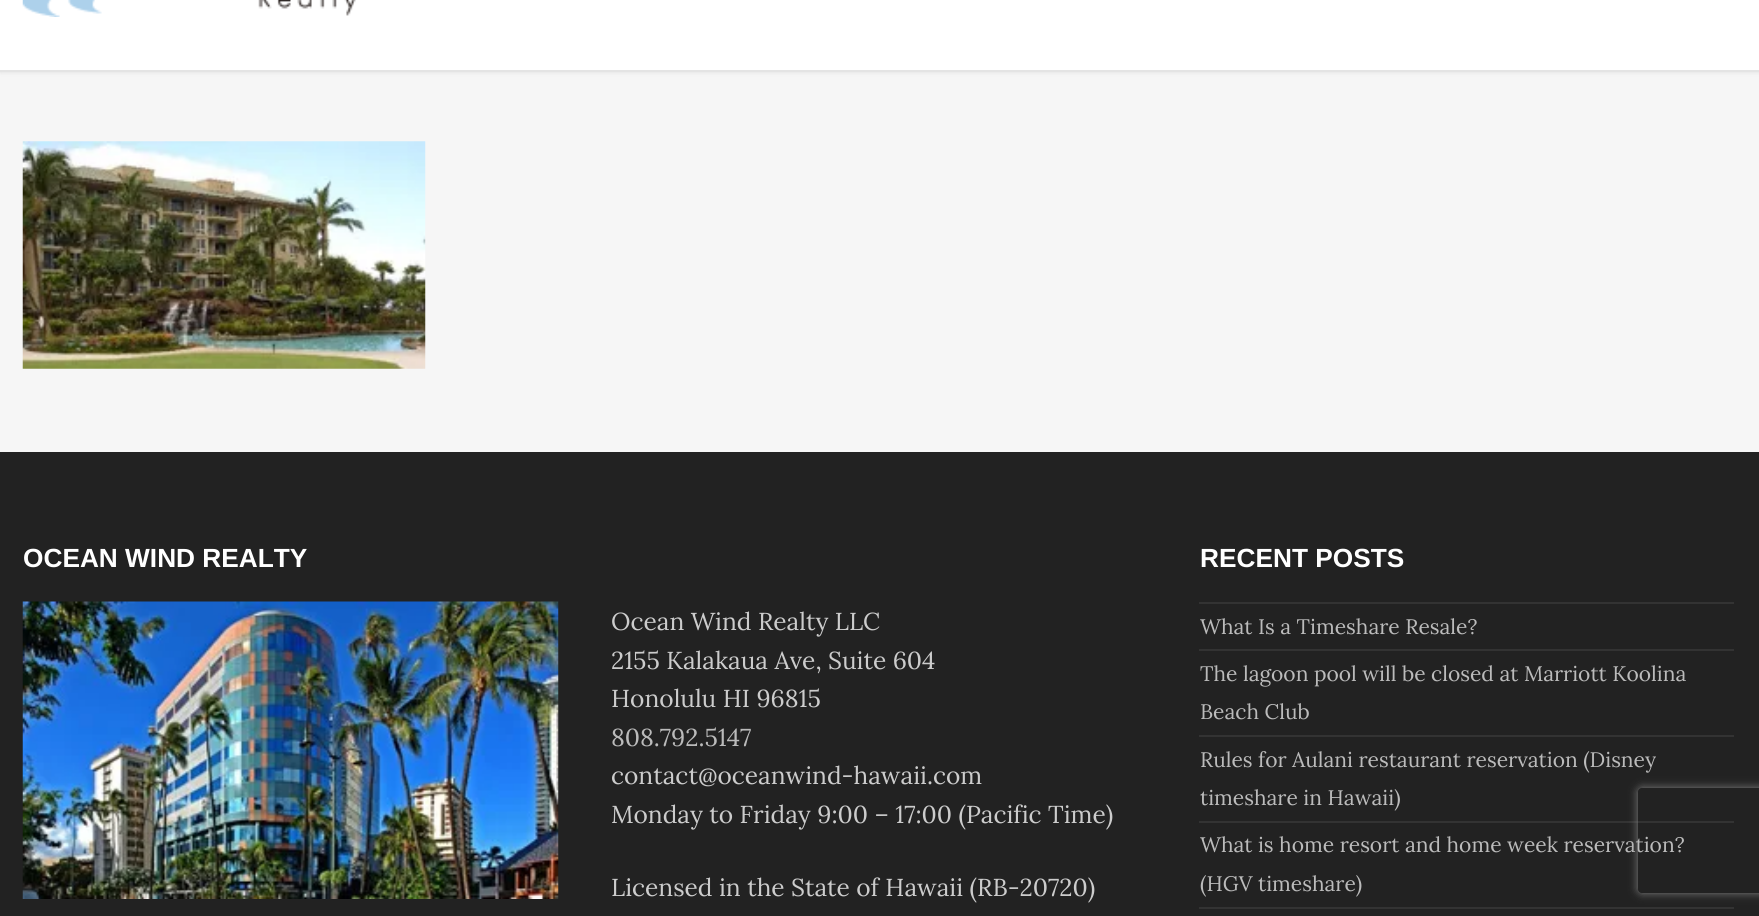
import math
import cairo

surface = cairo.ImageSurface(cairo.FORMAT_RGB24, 1759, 916)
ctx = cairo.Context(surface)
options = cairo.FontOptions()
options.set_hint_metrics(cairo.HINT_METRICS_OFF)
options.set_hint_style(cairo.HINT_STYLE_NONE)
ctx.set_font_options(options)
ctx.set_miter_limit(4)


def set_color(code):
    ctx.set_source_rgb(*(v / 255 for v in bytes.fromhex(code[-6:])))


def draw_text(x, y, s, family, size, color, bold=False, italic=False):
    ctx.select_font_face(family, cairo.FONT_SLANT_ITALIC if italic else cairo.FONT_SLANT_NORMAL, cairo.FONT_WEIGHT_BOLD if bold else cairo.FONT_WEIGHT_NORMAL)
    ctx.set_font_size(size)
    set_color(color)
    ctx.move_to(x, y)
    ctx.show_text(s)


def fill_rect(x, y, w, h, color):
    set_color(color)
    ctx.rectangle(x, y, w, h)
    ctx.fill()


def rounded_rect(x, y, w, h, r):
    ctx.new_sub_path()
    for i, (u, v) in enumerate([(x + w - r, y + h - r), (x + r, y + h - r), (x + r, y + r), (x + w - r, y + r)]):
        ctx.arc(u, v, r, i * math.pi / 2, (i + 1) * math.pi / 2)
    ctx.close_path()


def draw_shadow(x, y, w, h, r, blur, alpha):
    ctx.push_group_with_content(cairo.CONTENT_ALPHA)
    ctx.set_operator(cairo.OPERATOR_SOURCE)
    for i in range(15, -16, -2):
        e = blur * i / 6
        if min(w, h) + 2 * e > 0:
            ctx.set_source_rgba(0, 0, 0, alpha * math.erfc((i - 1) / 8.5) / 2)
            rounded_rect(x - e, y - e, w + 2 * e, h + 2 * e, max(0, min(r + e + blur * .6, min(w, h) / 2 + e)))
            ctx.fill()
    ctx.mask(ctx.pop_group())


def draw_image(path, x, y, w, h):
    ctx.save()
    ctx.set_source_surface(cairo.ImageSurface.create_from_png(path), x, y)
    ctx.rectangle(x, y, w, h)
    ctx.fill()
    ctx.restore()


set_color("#f6f6f6")
ctx.paint()
set_color("#000000")
draw_shadow(0, -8, 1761, 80, 0, 2.5, 0.1)
fill_rect(0, 0, 1759, 70, "#ffffff")
fill_rect(0, 70, 1759, 2, "#e4e4e4")
draw_image("assets/img1.png", 22, 0, 334, 17)
draw_image("assets/img2.png", 22, 141, 404, 228)
fill_rect(0, 452, 1759, 464, "#222222")
draw_text(23, 567, "OCEAN WIND REALTY", "Liberation Sans", 26.25, "#ffffff", bold=True)
draw_image("assets/img3.png", 22, 601, 537, 298)
draw_text(611, 630, "Ocean Wind Realty LLC", "Lora", 24.5, "#cccccc")
draw_text(611, 669, "2155 Kalakaua Ave, Suite 604", "Lora", 24.5, "#cccccc")
draw_text(611, 707, "Honolulu HI 96815", "Lora", 24.5, "#cccccc")
draw_text(611, 746, "808.792.5147", "Lora", 24.5, "#bbbbbb")
draw_text(611, 784, "contact@oceanwind-hawaii.com", "Lora", 24.5, "#cccccc")
draw_text(611, 823, "Monday to Friday 9:00 – 17:00 (Pacific Time)", "Lora", 24.5, "#cccccc")
draw_text(611, 896, "Licensed in the State of Hawaii (RB-20720)", "Lora", 24.5, "#cccccc")
draw_text(1200, 567, "RECENT POSTS", "Liberation Sans", 26.25, "#ffffff", bold=True)
fill_rect(1199, 602, 535, 2, "#333333")
fill_rect(1199, 649, 535, 2, "#333333")
draw_text(1200, 634, "What Is a Timeshare Resale?", "Lora", 21, "#bbbbbb")
fill_rect(1199, 735, 535, 2, "#333333")
draw_text(1200, 681, "The lagoon pool will be closed at Marriott Koolina", "Lora", 21, "#bbbbbb")
draw_text(1200, 719, "Beach Club", "Lora", 21, "#bbbbbb")
fill_rect(1199, 821, 535, 2, "#333333")
draw_text(1200, 767, "Rules for Aulani restaurant reservation (Disney", "Lora", 21, "#bbbbbb")
draw_text(1200, 805, "timeshare in Hawaii)", "Lora", 21, "#bbbbbb")
fill_rect(1199, 907, 535, 2, "#333333")
draw_text(1200, 852, "What is home resort and home week reservation?", "Lora", 21, "#bbbbbb")
draw_text(1200, 891, "(HGV timeshare)", "Lora", 21, "#bbbbbb")
ctx.save()
ctx.set_fill_rule(cairo.FILL_RULE_EVEN_ODD)
ctx.new_path()
ctx.move_to(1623, 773)
ctx.line_to(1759, 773)
ctx.line_to(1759, 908)
ctx.line_to(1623, 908)
ctx.close_path()
ctx.move_to(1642, 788)
ctx.line_to(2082, 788)
ctx.curve_to(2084, 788, 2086, 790, 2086, 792)
ctx.line_to(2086, 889)
ctx.curve_to(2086, 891, 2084, 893, 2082, 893)
ctx.line_to(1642, 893)
ctx.curve_to(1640, 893, 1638, 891, 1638, 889)
ctx.line_to(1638, 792)
ctx.curve_to(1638, 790, 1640, 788, 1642, 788)
ctx.close_path()
ctx.clip()
set_color("#808080")
draw_shadow(1638, 788, 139, 105, 4, 4.5, 1)
ctx.restore()
surface.write_to_png("output.png")
